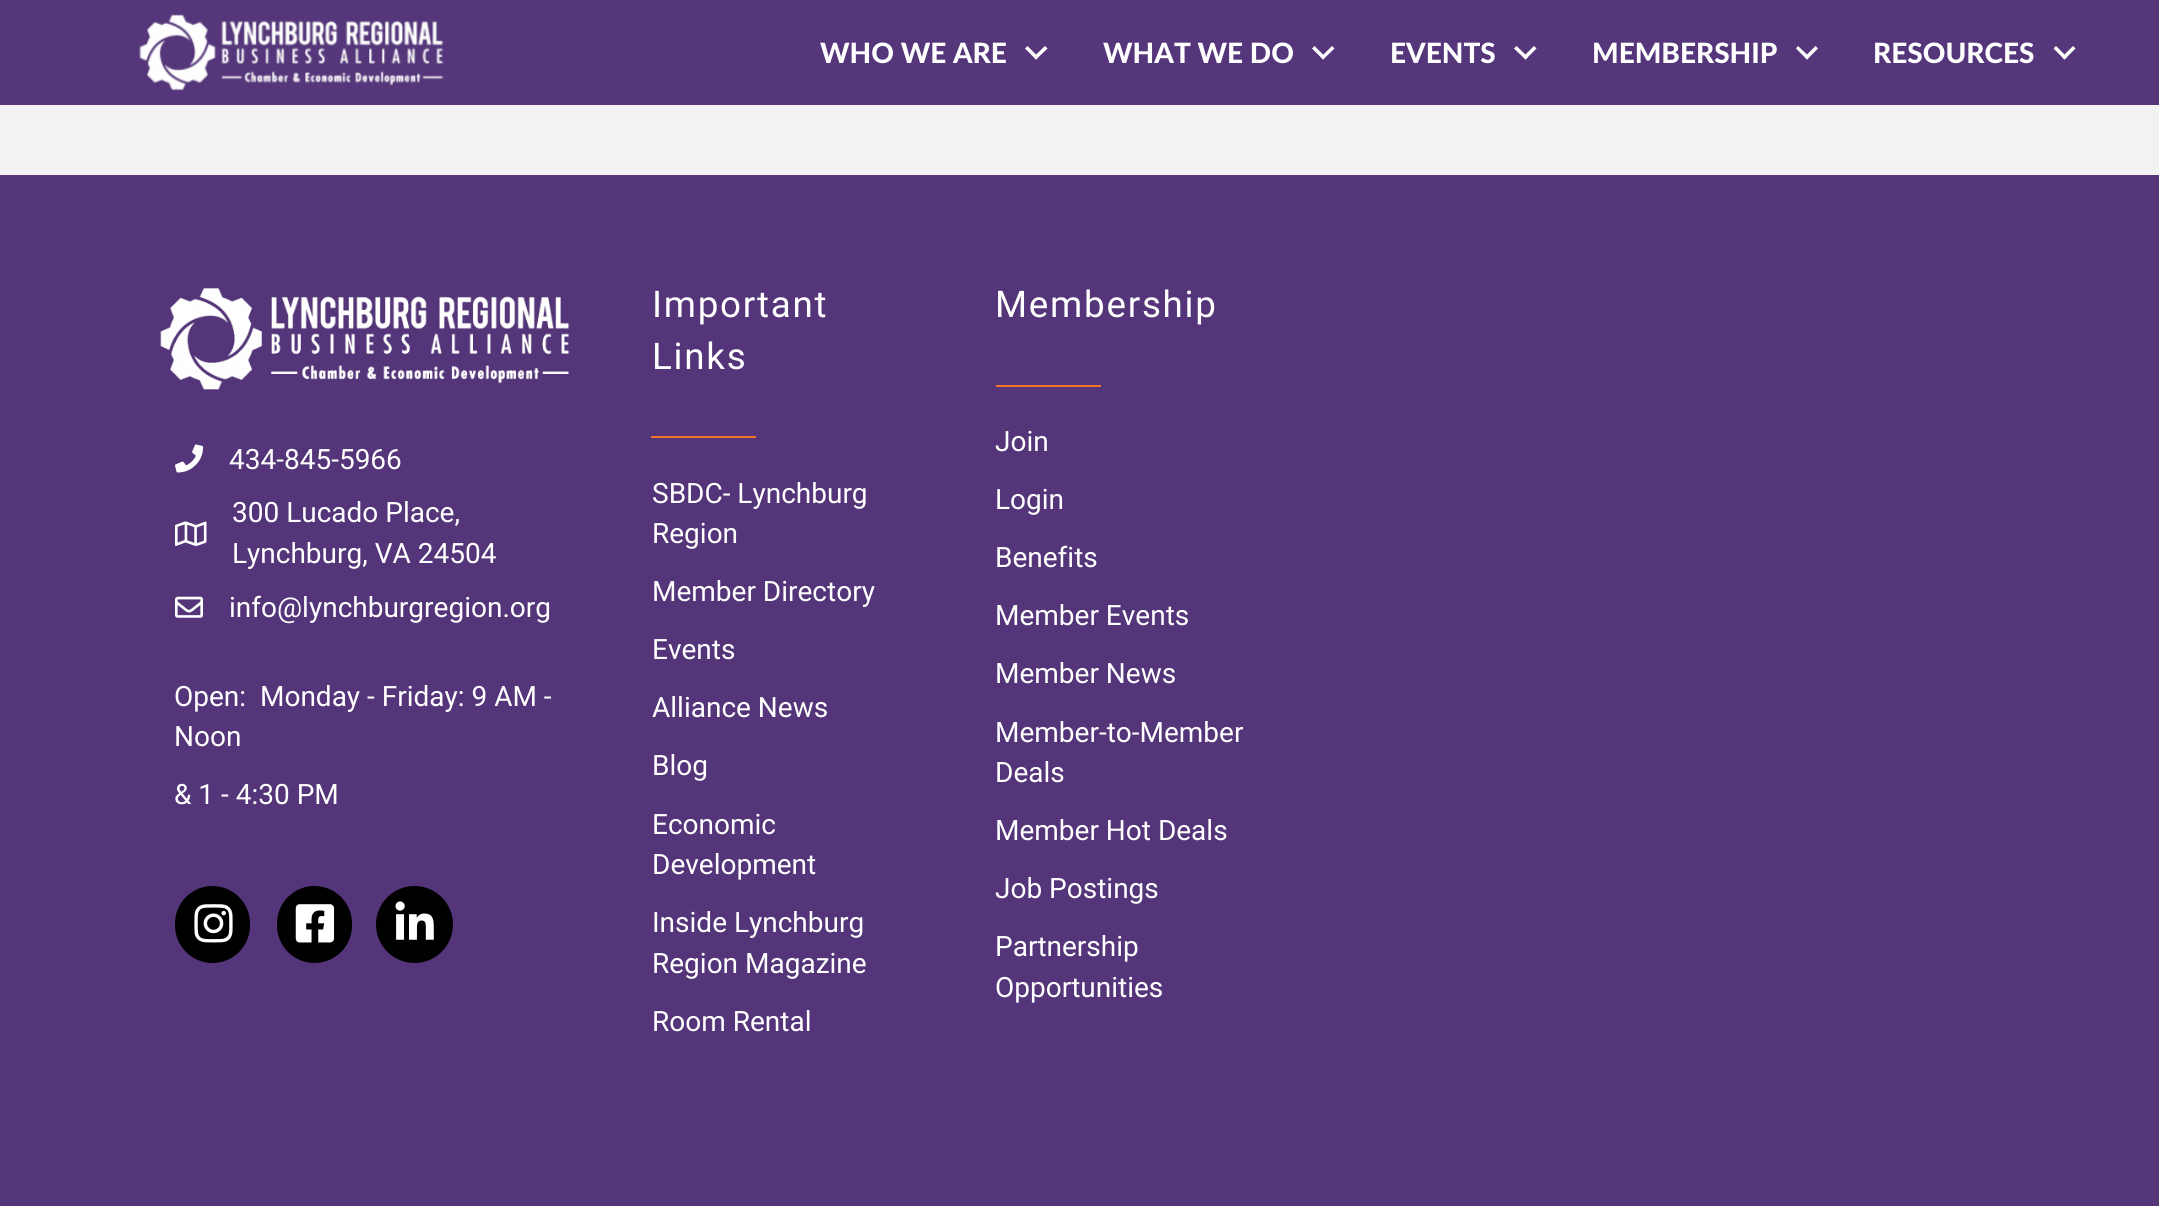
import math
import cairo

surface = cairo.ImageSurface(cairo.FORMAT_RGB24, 2159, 1206)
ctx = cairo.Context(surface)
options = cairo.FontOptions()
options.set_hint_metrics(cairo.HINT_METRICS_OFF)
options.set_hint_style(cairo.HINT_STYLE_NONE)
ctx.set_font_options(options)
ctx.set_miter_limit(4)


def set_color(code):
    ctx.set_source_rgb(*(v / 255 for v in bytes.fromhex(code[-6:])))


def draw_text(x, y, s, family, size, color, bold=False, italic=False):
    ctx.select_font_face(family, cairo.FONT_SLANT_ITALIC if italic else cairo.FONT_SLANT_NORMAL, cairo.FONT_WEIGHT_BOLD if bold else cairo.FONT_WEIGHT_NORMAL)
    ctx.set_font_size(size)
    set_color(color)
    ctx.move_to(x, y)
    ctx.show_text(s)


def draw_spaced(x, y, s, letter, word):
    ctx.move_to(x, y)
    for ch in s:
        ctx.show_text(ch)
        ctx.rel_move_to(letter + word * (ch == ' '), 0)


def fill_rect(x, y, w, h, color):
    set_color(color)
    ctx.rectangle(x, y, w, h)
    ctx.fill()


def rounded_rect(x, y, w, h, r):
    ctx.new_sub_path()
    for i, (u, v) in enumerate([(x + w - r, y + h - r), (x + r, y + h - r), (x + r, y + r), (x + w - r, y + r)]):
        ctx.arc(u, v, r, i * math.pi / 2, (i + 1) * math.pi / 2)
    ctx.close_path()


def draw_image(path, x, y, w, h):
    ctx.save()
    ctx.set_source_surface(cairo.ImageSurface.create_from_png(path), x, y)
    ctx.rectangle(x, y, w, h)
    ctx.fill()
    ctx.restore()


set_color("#f2f2f2")
ctx.paint()
fill_rect(0, 0, 2159, 105, "#55367a")
draw_image("assets/img1.png", 139, 14, 305, 77)
draw_text(820, 63, "WHO WE ARE", "Lato Black", 28, "#ffffff")
ctx.new_path()
ctx.move_to(1045, 46)
ctx.line_to(1047.5, 48.5)
ctx.line_to(1036, 59.5)
ctx.line_to(1033.5, 57)
ctx.close_path()
ctx.fill()
ctx.new_path()
ctx.move_to(1027.5, 46)
ctx.line_to(1038.5, 57)
ctx.line_to(1036, 59.5)
ctx.line_to(1025, 48.5)
ctx.close_path()
ctx.fill()
draw_text(1103, 63, "WHAT WE DO", "Lato Black", 28, "#ffffff")
ctx.new_path()
ctx.move_to(1332, 46)
ctx.line_to(1334.5, 48.5)
ctx.line_to(1323, 59.5)
ctx.line_to(1321, 57)
ctx.close_path()
ctx.fill()
ctx.new_path()
ctx.move_to(1314.5, 46)
ctx.line_to(1325.5, 57)
ctx.line_to(1323, 59.5)
ctx.line_to(1312, 48.5)
ctx.close_path()
ctx.fill()
draw_text(1390, 63, "EVENTS", "Lato Black", 28, "#ffffff")
ctx.new_path()
ctx.move_to(1534, 46)
ctx.line_to(1536.5, 48.5)
ctx.line_to(1525.5, 59.5)
ctx.line_to(1523, 57)
ctx.close_path()
ctx.fill()
ctx.new_path()
ctx.move_to(1516.5, 46)
ctx.line_to(1528, 57)
ctx.line_to(1525.5, 59.5)
ctx.line_to(1514, 48.5)
ctx.close_path()
ctx.fill()
draw_text(1592, 63, "MEMBERSHIP", "Lato Black", 28, "#ffffff")
ctx.new_path()
ctx.move_to(1815.5, 46)
ctx.line_to(1818, 48.5)
ctx.line_to(1807, 59.5)
ctx.line_to(1804.5, 57)
ctx.close_path()
ctx.fill()
ctx.new_path()
ctx.move_to(1798, 46)
ctx.line_to(1809.5, 57)
ctx.line_to(1807, 59.5)
ctx.line_to(1796, 48.5)
ctx.close_path()
ctx.fill()
draw_text(1873, 63, "RESOURCES", "Lato Black", 28, "#ffffff")
ctx.new_path()
ctx.move_to(2073, 46)
ctx.line_to(2075.5, 48.5)
ctx.line_to(2064.5, 59.5)
ctx.line_to(2062, 57)
ctx.close_path()
ctx.fill()
ctx.new_path()
ctx.move_to(2056, 46)
ctx.line_to(2067, 57)
ctx.line_to(2064.5, 59.5)
ctx.line_to(2053.5, 48.5)
ctx.close_path()
ctx.fill()
fill_rect(0, 175, 2159, 1031, "#543579")
draw_image("assets/img2.png", 160, 288, 410, 102)
draw_image("assets/img3.png", 175, 444, 29, 29)
draw_text(229, 469, "434-845-5966", "Roboto", 28, "#ffffff")
draw_image("assets/img4.png", 175, 521, 32, 25)
draw_text(232, 522, "300 Lucado Place,", "Roboto", 28, "#ffffff")
draw_text(232, 563, "Lynchburg, VA 24504", "Roboto", 28, "#ffffff")
draw_image("assets/img5.png", 175, 596, 28, 22)
draw_text(229, 617, "info@lynchburgregion.org", "Roboto", 28, "#ffffff")
draw_text(174, 706, "Open:  Monday - Friday: 9 AM -", "Roboto", 28, "#ffffff")
draw_text(174, 746, "Noon", "Roboto", 28, "#ffffff")
draw_text(174, 804, "& 1 - 4:30 PM", "Roboto", 28, "#ffffff")
set_color("#000000")
rounded_rect(175, 886, 75, 77, 37.5)
ctx.fill()
draw_image("assets/img6.png", 194, 904, 39, 39)
rounded_rect(277, 886, 75, 77, 37.5)
ctx.fill()
draw_image("assets/img7.png", 295, 904, 40, 39)
ctx.arc(414.5, 924.5, 38.5, 0, 2 * math.pi)
ctx.fill()
draw_image("assets/img8.png", 395, 901, 39, 39)
ctx.set_font_size(36.75)
set_color("#ffffff")
draw_spaced(652, 317, "Important", 1.75, 0)
draw_spaced(652, 369, "Links", 1.75, 0)
fill_rect(651, 436, 105, 2, "#f07524")
draw_text(652, 503, "SBDC- Lynchburg", "Roboto", 28, "#ffffff")
draw_text(652, 543, "Region", "Roboto", 28, "#ffffff")
draw_text(652, 601, "Member Directory", "Roboto", 28, "#ffffff")
draw_text(652, 659, "Events", "Roboto", 28, "#ffffff")
draw_text(652, 717, "Alliance News", "Roboto", 28, "#ffffff")
draw_text(652, 775, "Blog", "Roboto", 28, "#ffffff")
draw_text(652, 834, "Economic", "Roboto", 28, "#ffffff")
draw_text(652, 874, "Development", "Roboto", 28, "#ffffff")
draw_text(652, 932, "Inside Lynchburg", "Roboto", 28, "#ffffff")
draw_text(652, 973, "Region Magazine", "Roboto", 28, "#ffffff")
draw_text(652, 1031, "Room Rental", "Roboto", 28, "#ffffff")
ctx.set_font_size(36.75)
draw_spaced(995, 317, "Membership", 1.75, 0)
fill_rect(996, 385, 105, 2, "#f07524")
draw_text(995, 451, "Join", "Roboto", 28, "#ffffff")
draw_text(995, 509, "Login", "Roboto", 28, "#ffffff")
draw_text(995, 567, "Benefits", "Roboto", 28, "#ffffff")
draw_text(995, 625, "Member Events", "Roboto", 28, "#ffffff")
draw_text(995, 683, "Member News", "Roboto", 28, "#ffffff")
draw_text(995, 742, "Member-to-Member", "Roboto", 28, "#ffffff")
draw_text(995, 782, "Deals", "Roboto", 28, "#ffffff")
draw_text(995, 840, "Member Hot Deals", "Roboto", 28, "#ffffff")
draw_text(995, 898, "Job Postings", "Roboto", 28, "#ffffff")
draw_text(995, 956, "Partnership", "Roboto", 28, "#ffffff")
draw_text(995, 997, "Opportunities", "Roboto", 28, "#ffffff")
surface.write_to_png("output.png")
